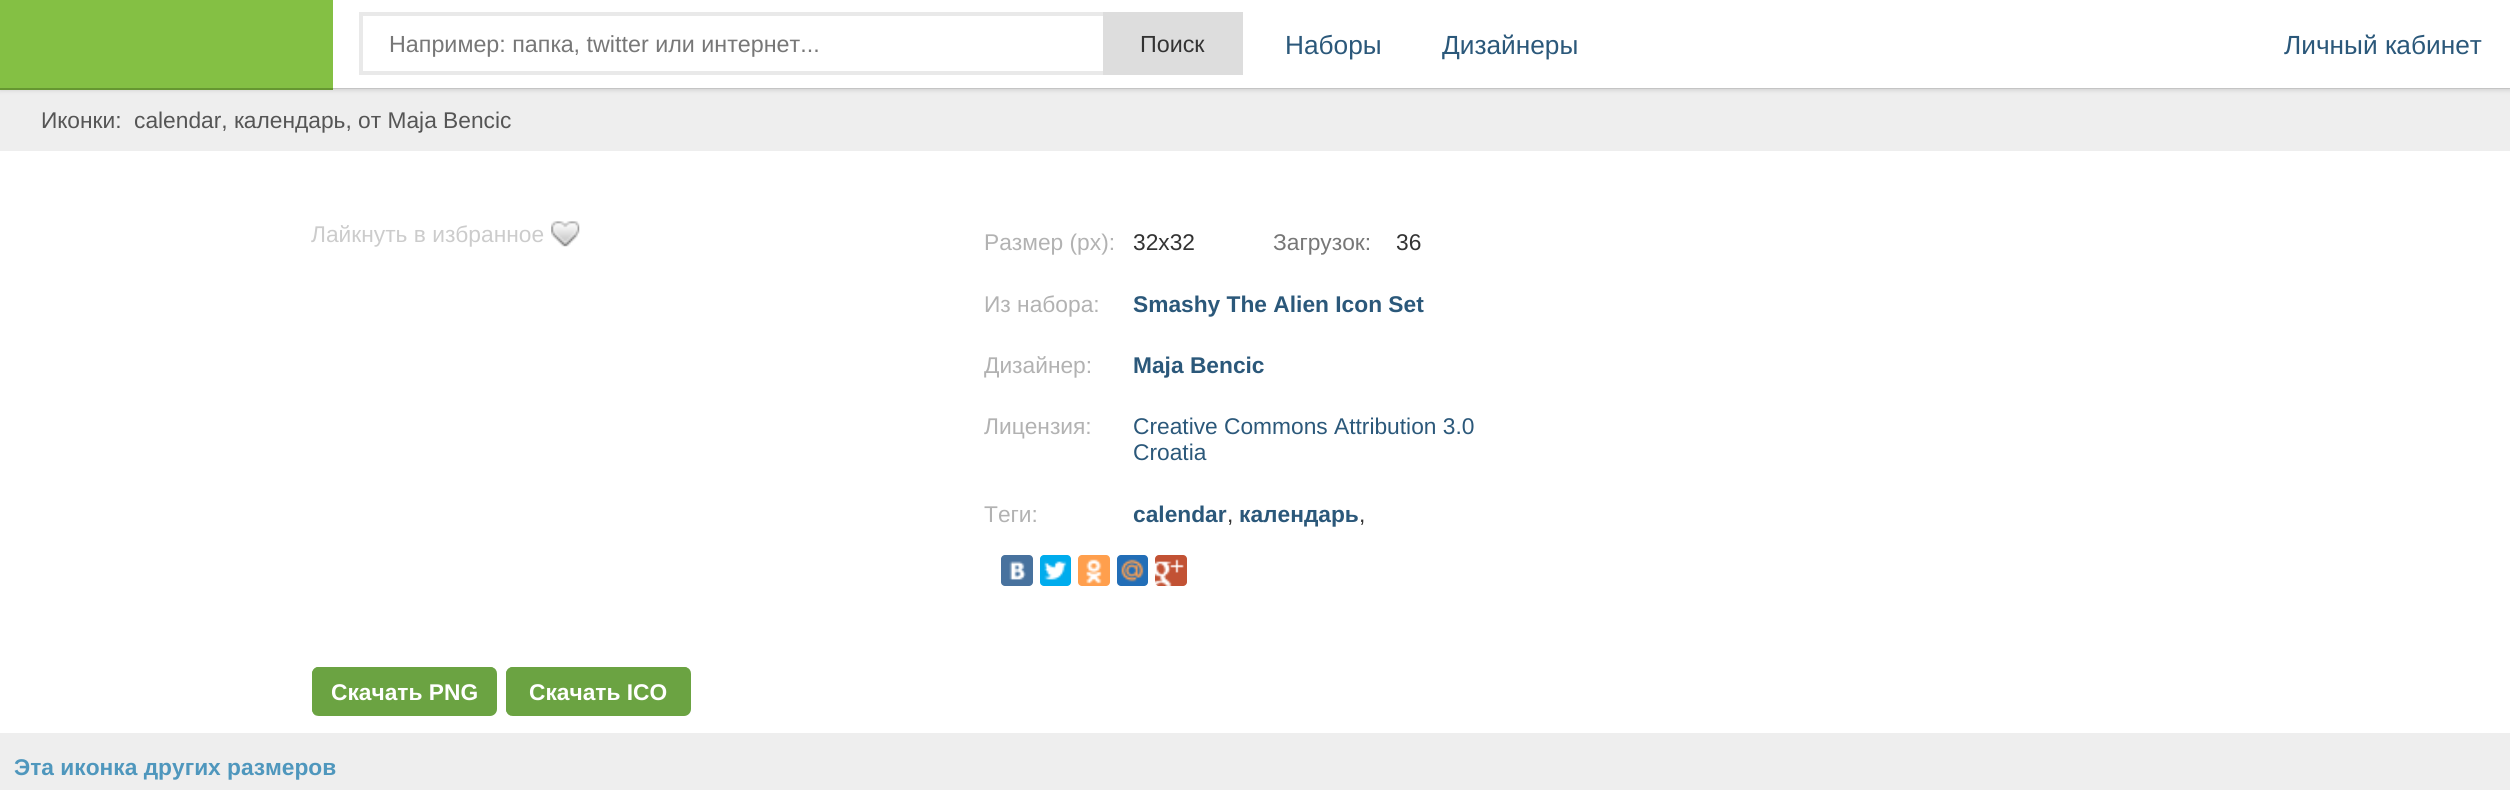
import math
import cairo

surface = cairo.ImageSurface(cairo.FORMAT_RGB24, 2510, 790)
ctx = cairo.Context(surface)
options = cairo.FontOptions()
options.set_hint_metrics(cairo.HINT_METRICS_OFF)
options.set_hint_style(cairo.HINT_STYLE_NONE)
ctx.set_font_options(options)
ctx.set_miter_limit(4)


def set_color(code):
    ctx.set_source_rgb(*(v / 255 for v in bytes.fromhex(code[-6:])))


def draw_text(x, y, s, family, size, color, bold=False, italic=False):
    ctx.select_font_face(family, cairo.FONT_SLANT_ITALIC if italic else cairo.FONT_SLANT_NORMAL, cairo.FONT_WEIGHT_BOLD if bold else cairo.FONT_WEIGHT_NORMAL)
    ctx.set_font_size(size)
    set_color(color)
    ctx.move_to(x, y)
    ctx.show_text(s)


def fill_rect(x, y, w, h, color):
    set_color(color)
    ctx.rectangle(x, y, w, h)
    ctx.fill()


def rounded_rect(x, y, w, h, r):
    ctx.new_sub_path()
    for i, (u, v) in enumerate([(x + w - r, y + h - r), (x + r, y + h - r), (x + r, y + r), (x + w - r, y + r)]):
        ctx.arc(u, v, r, i * math.pi / 2, (i + 1) * math.pi / 2)
    ctx.close_path()


def draw_shadow(x, y, w, h, r, blur, alpha):
    ctx.push_group_with_content(cairo.CONTENT_ALPHA)
    ctx.set_operator(cairo.OPERATOR_SOURCE)
    for i in range(15, -16, -2):
        e = blur * i / 6
        if min(w, h) + 2 * e > 0:
            ctx.set_source_rgba(0, 0, 0, alpha * math.erfc((i - 1) / 8.5) / 2)
            rounded_rect(x - e, y - e, w + 2 * e, h + 2 * e, max(0, min(r + e + blur * .6, min(w, h) / 2 + e)))
            ctx.fill()
    ctx.mask(ctx.pop_group())


def draw_image(path, x, y, w, h):
    ctx.save()
    ctx.set_source_surface(cairo.ImageSurface.create_from_png(path), x, y)
    ctx.rectangle(x, y, w, h)
    ctx.fill()
    ctx.restore()


set_color("#eeeeee")
ctx.paint()
fill_rect(333, 88, 2177, 1, "#d6d6d6")
set_color("#000000")
draw_shadow(0, 4, 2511, 87, 0, 2, 0.1)
fill_rect(333, 0, 2177, 88, "#ffffff")
fill_rect(0, 0, 333, 88, "#84c044")
fill_rect(0, 88, 333, 2, "#669731")
ctx.rectangle(361, 14, 827, 59)
set_color("#e9e9e9")
ctx.set_line_width(4)
ctx.stroke()
draw_text(389, 52, "Например: папка, twitter или интернет...", "Liberation Sans", 23.3, "#777777")
fill_rect(1103, 12, 140, 63, "#dddddd")
draw_text(1140, 52, "Поиск", "Liberation Sans", 23.3, "#333333")
draw_text(1285, 54, "Наборы", "Liberation Sans", 26.25, "#2b587a")
draw_text(1442, 54, "Дизайнеры", "Liberation Sans", 26.25, "#2b587a")
draw_text(2284, 54, "Личный кабинет", "Liberation Sans", 26.25, "#2b587a")
draw_text(41, 128, "Иконки:", "Liberation Sans", 22.75, "#555555")
draw_text(134, 128, "calendar, календарь, от Maja Bencic", "Liberation Sans", 22.75, "#555555")
fill_rect(0, 151, 2510, 582, "#ffffff")
draw_image("assets/img1.png", 551, 221, 29, 26)
draw_text(311, 242, "Лайкнуть в избранное", "Liberation Sans", 22.75, "#cccccc")
set_color("#6ba342")
rounded_rect(312, 667, 185, 49, 7)
ctx.fill()
ctx.set_fill_rule(cairo.FILL_RULE_EVEN_ODD)
ctx.new_path()
ctx.move_to(318, 667)
ctx.line_to(490, 667)
ctx.curve_to(494, 667, 497, 670, 497, 674)
ctx.line_to(497, 709)
ctx.curve_to(497, 713, 494, 716, 490, 716)
ctx.line_to(318, 716)
ctx.curve_to(315, 716, 312, 713, 312, 709)
ctx.line_to(312, 674)
ctx.curve_to(312, 670, 315, 667, 318, 667)
ctx.close_path()
ctx.move_to(318, 668)
ctx.line_to(490, 668)
ctx.curve_to(494, 668, 497, 671, 497, 674)
ctx.line_to(497, 709)
ctx.curve_to(497, 713, 494, 716, 490, 716)
ctx.line_to(318, 716)
ctx.curve_to(316, 716, 313, 713, 313, 709)
ctx.line_to(313, 674)
ctx.curve_to(313, 671, 316, 668, 318, 668)
ctx.close_path()
ctx.fill()
draw_text(331, 700, "Скачать PNG", "Liberation Sans", 22.75, "#ffffff", bold=True)
set_color("#6ba342")
rounded_rect(506, 667, 185, 49, 7)
ctx.fill()
ctx.new_path()
ctx.move_to(513, 667)
ctx.line_to(684, 667)
ctx.curve_to(688, 667, 691, 670, 691, 674)
ctx.line_to(691, 709)
ctx.curve_to(691, 713, 688, 716, 684, 716)
ctx.line_to(513, 716)
ctx.curve_to(509, 716, 506, 713, 506, 709)
ctx.line_to(506, 674)
ctx.curve_to(506, 670, 509, 667, 513, 667)
ctx.close_path()
ctx.move_to(513, 668)
ctx.line_to(684, 668)
ctx.curve_to(688, 668, 691, 671, 691, 674)
ctx.line_to(691, 709)
ctx.curve_to(691, 713, 688, 716, 684, 716)
ctx.line_to(513, 716)
ctx.curve_to(510, 716, 508, 713, 508, 709)
ctx.line_to(508, 674)
ctx.curve_to(508, 671, 510, 668, 513, 668)
ctx.close_path()
ctx.fill()
draw_text(529, 700, "Скачать ICO", "Liberation Sans", 22.75, "#ffffff", bold=True)
draw_text(984, 250, "Размер (px):", "Liberation Sans", 22.75, "#b2b2b2")
draw_text(1133, 250, "32x32", "Liberation Sans", 22.75, "#333333")
draw_text(1273, 250, "Загрузок:", "Liberation Sans", 22.75, "#777777")
draw_text(1396, 250, "36", "Liberation Sans", 22.75, "#333333")
draw_text(984, 312, "Из набора:", "Liberation Sans", 22.75, "#b2b2b2")
draw_text(1133, 312, "Smashy The Alien Icon Set", "Liberation Sans", 22.75, "#2b587a", bold=True)
draw_text(984, 373, "Дизайнер:", "Liberation Sans", 22.75, "#b2b2b2")
draw_text(1133, 373, "Maja Bencic", "Liberation Sans", 22.75, "#2b587a", bold=True)
draw_text(984, 434, "Лицензия:", "Liberation Sans", 22.75, "#b2b2b2")
draw_text(1133, 434, "Creative Commons Attribution 3.0", "Liberation Sans", 22.75, "#2b587a")
draw_text(1133, 460, "Croatia", "Liberation Sans", 22.75, "#2b587a")
draw_text(984, 522, "Теги:", "Liberation Sans", 22.75, "#b2b2b2")
draw_text(1133, 522, "calendar", "Liberation Sans", 22.75, "#2b587a", bold=True)
draw_text(1227, 522, ",", "Liberation Sans", 22.75, "#333333")
draw_text(1239, 522, "календарь", "Liberation Sans", 22.75, "#2b587a", bold=True)
draw_text(1359, 522, ",", "Liberation Sans", 22.75, "#333333")
set_color("#48729e")
rounded_rect(1001, 555, 32, 31, 4)
ctx.fill()
draw_image("assets/img2.png", 1009, 561, 17, 19)
set_color("#00aced")
rounded_rect(1040, 555, 31, 31, 4)
ctx.fill()
draw_image("assets/img3.png", 1044, 561, 23, 19)
set_color("#ff9f4d")
rounded_rect(1078, 555, 32, 31, 4)
ctx.fill()
draw_image("assets/img4.png", 1086, 559, 16, 25)
set_color("#226eb7")
rounded_rect(1117, 555, 31, 31, 4)
ctx.fill()
draw_image("assets/img5.png", 1121, 559, 23, 23)
set_color("#c25234")
rounded_rect(1155, 555, 32, 31, 4)
ctx.fill()
draw_image("assets/img6.png", 1155, 559, 29, 27)
draw_text(14, 775, "Эта иконка других размеров", "Liberation Sans", 22.75, "#4f97bd", bold=True)
surface.write_to_png("output.png")
